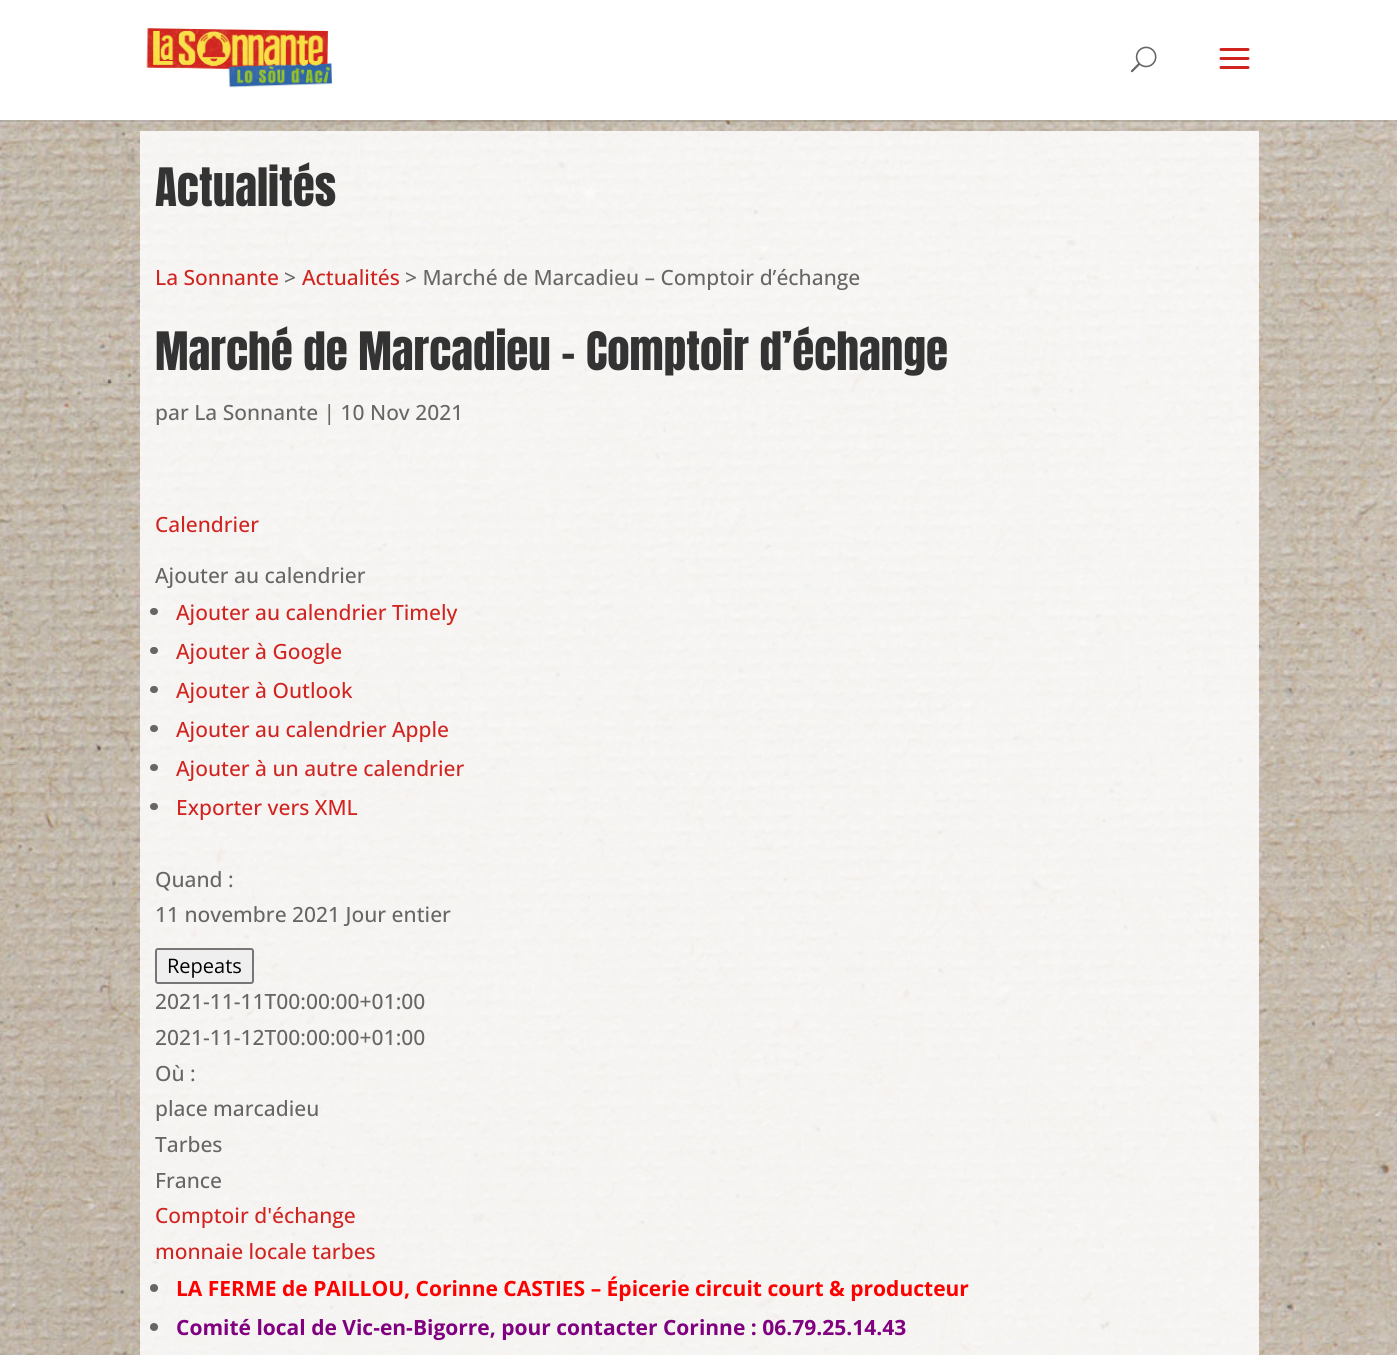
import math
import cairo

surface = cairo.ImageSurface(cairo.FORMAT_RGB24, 1397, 1355)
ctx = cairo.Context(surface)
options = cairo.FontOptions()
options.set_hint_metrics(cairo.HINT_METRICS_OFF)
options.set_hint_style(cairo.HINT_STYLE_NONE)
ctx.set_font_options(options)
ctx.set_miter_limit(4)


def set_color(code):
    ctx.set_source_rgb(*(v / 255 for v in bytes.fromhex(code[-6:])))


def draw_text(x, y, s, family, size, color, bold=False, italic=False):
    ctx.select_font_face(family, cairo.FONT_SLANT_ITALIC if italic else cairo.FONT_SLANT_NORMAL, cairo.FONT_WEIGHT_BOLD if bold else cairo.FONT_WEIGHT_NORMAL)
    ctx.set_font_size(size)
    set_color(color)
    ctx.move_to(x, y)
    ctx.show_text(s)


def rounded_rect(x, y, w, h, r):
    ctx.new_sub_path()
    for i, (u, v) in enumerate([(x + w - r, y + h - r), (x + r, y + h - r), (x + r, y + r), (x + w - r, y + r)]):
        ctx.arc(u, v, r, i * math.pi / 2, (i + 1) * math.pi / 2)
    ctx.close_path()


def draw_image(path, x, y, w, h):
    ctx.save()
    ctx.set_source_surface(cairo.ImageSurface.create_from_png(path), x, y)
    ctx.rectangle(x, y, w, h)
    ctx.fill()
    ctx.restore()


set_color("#ffffff")
ctx.paint()
draw_image("assets/img1.png", 0, 120, 1397, 1235)
ctx.set_source_rgba(0, 0, 0, 0.1)
ctx.rectangle(0, 120, 1397, 2)
ctx.fill()
draw_image("assets/img2.png", 146, 28, 187, 60)
draw_image("assets/img3.png", 1130, 46, 27, 27)
draw_image("assets/img4.png", 1219, 48, 31, 21)
ctx.set_source_rgba(1, 1, 1, 0.85)
ctx.rectangle(140, 131, 1119, 1224)
ctx.fill()
draw_text(155, 206, "Actualités", "Anton", 45, "#333333")
draw_text(155, 285, "La Sonnante", "Open Sans Medium", 21, "#d12421")
draw_text(284, 285, ">", "Open Sans Medium", 21, "#666666")
draw_text(302, 285, "Actualités", "Open Sans Medium", 21, "#d12421")
draw_text(405, 285, "> Marché de Marcadieu – Comptoir d’échange", "Open Sans Medium", 21, "#666666")
draw_text(155, 370, "Marché de Marcadieu – Comptoir d’échange", "Anton", 45, "#333333")
draw_text(155, 420, "par La Sonnante | 10 Nov 2021", "Open Sans Medium", 21, "#666666")
draw_text(155, 532, "Calendrier", "Open Sans Medium", 21, "#d12421")
draw_text(155, 583, "Ajouter au calendrier", "Open Sans Medium", 21, "#666666")
rounded_rect(150, 608, 8, 7, 3.5)
ctx.fill()
draw_text(176, 620, "Ajouter au calendrier Timely", "Open Sans Medium", 21, "#d12421")
set_color("#666666")
rounded_rect(150, 647, 8, 7, 3.5)
ctx.fill()
draw_text(176, 659, "Ajouter à Google", "Open Sans Medium", 21, "#d12421")
set_color("#666666")
rounded_rect(150, 686, 8, 7, 3.5)
ctx.fill()
draw_text(176, 698, "Ajouter à Outlook", "Open Sans Medium", 21, "#d12421")
set_color("#666666")
rounded_rect(150, 725, 8, 7, 3.5)
ctx.fill()
draw_text(176, 737, "Ajouter au calendrier Apple", "Open Sans Medium", 21, "#d12421")
set_color("#666666")
rounded_rect(150, 764, 8, 7, 3.5)
ctx.fill()
draw_text(176, 776, "Ajouter à un autre calendrier", "Open Sans Medium", 21, "#d12421")
set_color("#666666")
rounded_rect(150, 803, 8, 7, 3.5)
ctx.fill()
draw_text(176, 815, "Exporter vers XML", "Open Sans Medium", 21, "#d12421")
draw_text(155, 887, "Quand :", "Open Sans Medium", 21, "#666666")
draw_text(155, 922, "11 novembre 2021 Jour entier", "Open Sans Medium", 21, "#666666")
set_color("#efefef")
rounded_rect(156, 949, 97, 34, 2)
ctx.fill_preserve()
set_color("#767676")
ctx.stroke()
draw_text(167, 973, "Repeats", "Open Sans", 20, "#000000")
draw_text(155, 1009, "2021-11-11T00:00:00+01:00", "Open Sans Medium", 21, "#666666")
draw_text(155, 1045, "2021-11-12T00:00:00+01:00", "Open Sans Medium", 21, "#666666")
draw_text(155, 1081, "Où :", "Open Sans Medium", 21, "#666666")
draw_text(155, 1116, "place marcadieu", "Open Sans Medium", 21, "#666666")
draw_text(155, 1152, "Tarbes", "Open Sans Medium", 21, "#666666")
draw_text(155, 1188, "France", "Open Sans Medium", 21, "#666666")
draw_text(155, 1223, "Comptoir d'échange", "Open Sans Medium", 21, "#d12421")
draw_text(155, 1259, "monnaie locale tarbes", "Open Sans Medium", 21, "#d12421")
set_color("#666666")
ctx.new_path()
ctx.arc(154, 1288, 4, 0, 2 * math.pi)
ctx.fill()
draw_text(176, 1296, "LA FERME de PAILLOU, Corinne CASTIES – Épicerie circuit court & producteur", "Open Sans", 21, "#ff0000", bold=True)
set_color("#666666")
ctx.new_path()
ctx.arc(154, 1327, 4, 0, 2 * math.pi)
ctx.fill()
draw_text(176, 1335, "Comité local de Vic-en-Bigorre, pour contacter Corinne : 06.79.25.14.43", "Open Sans", 21, "#800080", bold=True)
surface.write_to_png("output.png")
